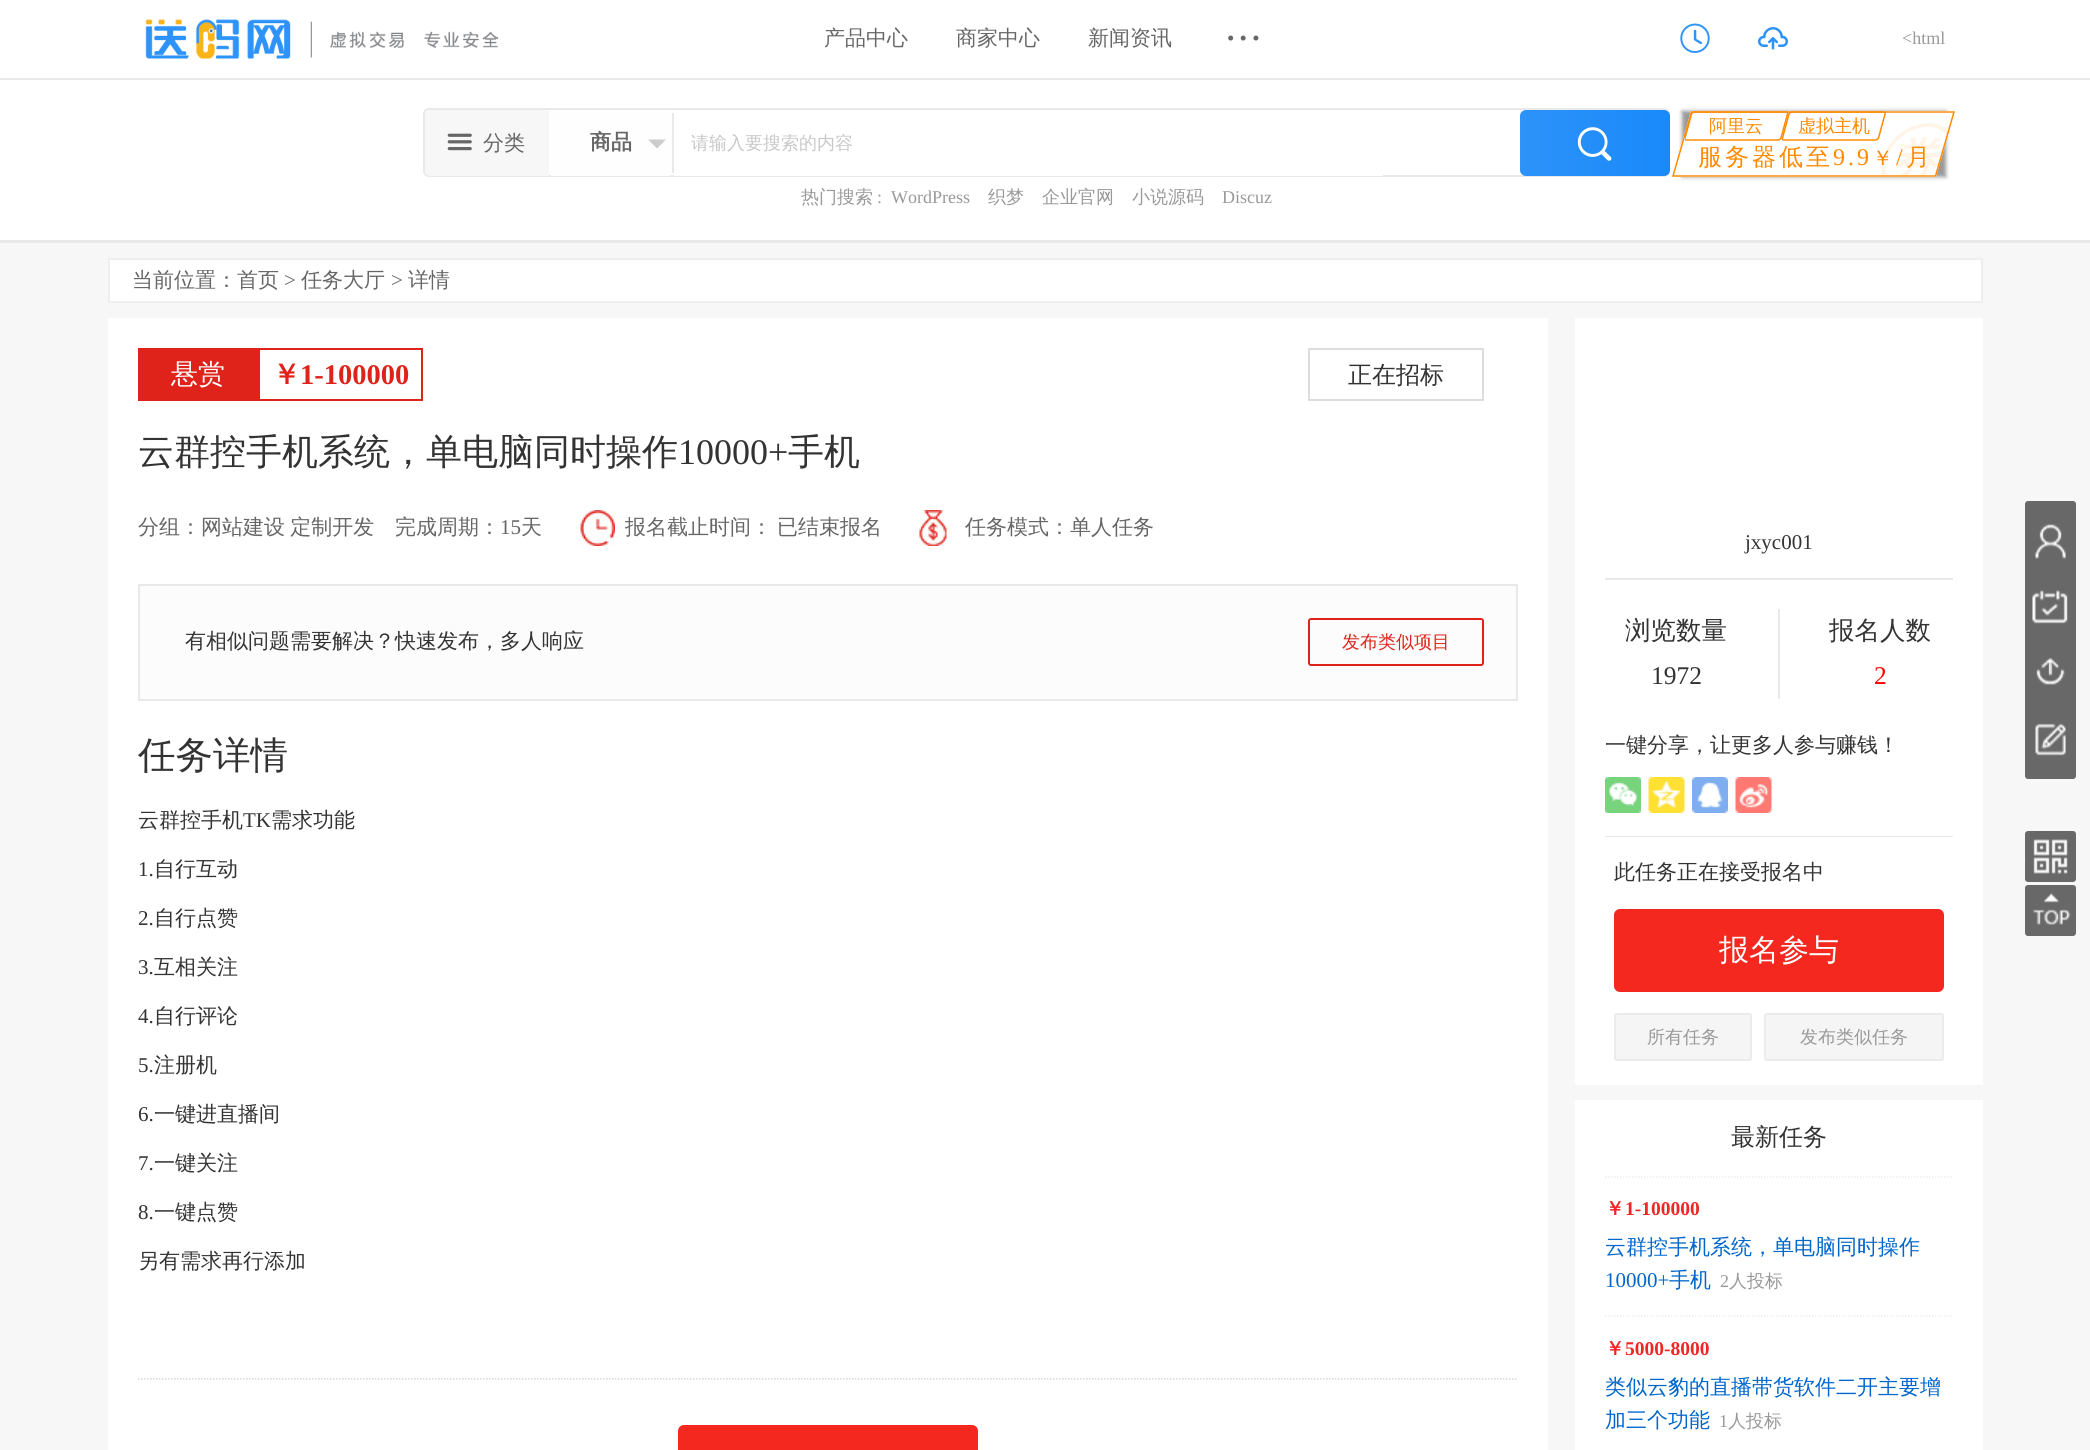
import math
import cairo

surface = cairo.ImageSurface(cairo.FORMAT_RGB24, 2090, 1450)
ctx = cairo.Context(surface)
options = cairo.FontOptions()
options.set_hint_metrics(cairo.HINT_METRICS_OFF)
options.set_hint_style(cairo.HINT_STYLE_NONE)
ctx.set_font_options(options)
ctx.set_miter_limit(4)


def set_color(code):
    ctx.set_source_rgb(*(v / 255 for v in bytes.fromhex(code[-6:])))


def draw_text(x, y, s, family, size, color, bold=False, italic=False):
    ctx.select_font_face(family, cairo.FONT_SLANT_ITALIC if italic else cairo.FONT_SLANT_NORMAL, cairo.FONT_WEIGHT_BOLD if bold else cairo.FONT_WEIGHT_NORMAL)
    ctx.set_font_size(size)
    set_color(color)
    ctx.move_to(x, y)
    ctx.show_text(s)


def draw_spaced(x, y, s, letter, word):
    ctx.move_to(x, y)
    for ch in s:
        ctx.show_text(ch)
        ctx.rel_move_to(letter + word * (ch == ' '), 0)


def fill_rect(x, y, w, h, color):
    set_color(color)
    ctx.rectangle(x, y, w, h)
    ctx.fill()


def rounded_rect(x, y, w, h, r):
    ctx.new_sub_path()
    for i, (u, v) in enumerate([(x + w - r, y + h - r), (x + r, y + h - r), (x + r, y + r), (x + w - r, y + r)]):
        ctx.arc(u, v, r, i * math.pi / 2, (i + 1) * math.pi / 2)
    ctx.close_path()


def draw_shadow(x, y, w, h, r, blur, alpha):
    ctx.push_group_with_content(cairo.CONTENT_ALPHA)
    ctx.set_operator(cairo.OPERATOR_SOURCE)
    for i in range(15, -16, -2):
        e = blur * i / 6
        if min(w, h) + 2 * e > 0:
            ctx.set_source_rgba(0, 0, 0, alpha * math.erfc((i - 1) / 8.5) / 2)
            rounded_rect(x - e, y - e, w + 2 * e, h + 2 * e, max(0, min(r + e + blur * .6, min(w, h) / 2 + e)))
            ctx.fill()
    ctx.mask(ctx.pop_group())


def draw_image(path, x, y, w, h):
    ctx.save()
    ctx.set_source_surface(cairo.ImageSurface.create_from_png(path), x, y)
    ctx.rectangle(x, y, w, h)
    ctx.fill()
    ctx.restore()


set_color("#f7f7f7")
ctx.paint()
fill_rect(0, 0, 2090, 78, "#ffffff")
fill_rect(0, 78, 2090, 2, "#e9e9e9")
draw_text(824, 45, "产品中心", "WenQuanYi Zen Hei Medium", 21, "#666666")
draw_text(956, 45, "商家中心", "WenQuanYi Zen Hei Medium", 21, "#666666")
draw_text(1088, 45, "新闻资讯", "WenQuanYi Zen Hei Medium", 21, "#666666")
draw_text(1227, 45, "• • •", "Liberation Serif", 21, "#666666")
draw_image("assets/img1.png", 145, 19, 354, 40)
draw_image("assets/img2.png", 1680, 23, 30, 30)
draw_image("assets/img3.png", 1758, 27, 30, 23)
draw_text(1902, 44, "<html", "Liberation Serif", 18, "#999999")
fill_rect(0, 80, 2090, 160, "#ffffff")
fill_rect(0, 240, 2090, 3, "#e9e9e9")
rounded_rect(424, 109, 1245, 67, 5)
ctx.stroke()
set_color("#f7f7f7")
ctx.new_path()
ctx.move_to(431, 110)
ctx.line_to(549, 110)
ctx.line_to(549, 176)
ctx.line_to(431, 176)
ctx.curve_to(427.5, 176, 425, 173.5, 425, 170)
ctx.line_to(425, 116)
ctx.curve_to(425, 112.5, 427.5, 110, 431, 110)
ctx.close_path()
ctx.fill()
draw_image("assets/img4.png", 447, 133, 25, 18)
draw_text(483, 150, "分类", "WenQuanYi Zen Hei Medium", 21, "#666666")
set_color("#fefefe")
ctx.new_path()
ctx.move_to(551, 110)
ctx.line_to(668, 110)
ctx.curve_to(671.5, 110, 674, 112.5, 674, 116)
ctx.line_to(674, 170)
ctx.curve_to(674, 173.5, 671.5, 176, 668, 176)
ctx.line_to(551, 176)
ctx.close_path()
ctx.fill()
fill_rect(672, 113, 2, 60, "#e9e9e9")
draw_text(590, 149, "商品", "WenQuanYi Zen Hei", 21, "#666666", bold=True)
set_color("#cccccc")
ctx.new_path()
ctx.move_to(648, 139.5)
ctx.line_to(666, 139.5)
ctx.line_to(657, 148.5)
ctx.close_path()
ctx.fill()
fill_rect(674, 175, 709, 1, "#ffffff")
draw_text(691, 149, "请输入要搜索的内容", "WenQuanYi Zen Hei Medium", 18, "#c8c8c8")
gradient = cairo.LinearGradient(1520, 143, 1670, 143)
gradient.add_color_stop_rgba(0, 0.176, 0.576, 0.976, 1)
gradient.add_color_stop_rgba(1, 0.098, 0.537, 0.98, 1)
ctx.set_source(gradient)
rounded_rect(1520, 110, 150, 66, 6)
ctx.fill()
draw_image("assets/img5.png", 1577, 127, 35, 34)
ctx.save()
ctx.set_fill_rule(cairo.FILL_RULE_EVEN_ODD)
ctx.new_path()
ctx.move_to(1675, 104)
ctx.line_to(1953, 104)
ctx.line_to(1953, 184)
ctx.line_to(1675, 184)
ctx.close_path()
ctx.move_to(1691, 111)
ctx.line_to(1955, 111)
ctx.line_to(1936, 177)
ctx.line_to(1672, 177)
ctx.close_path()
ctx.clip()
set_color("#999999")
draw_shadow(1682, 111, 264, 66, 0, 2, 1)
ctx.restore()
draw_image("assets/img6.png", 1881, 123, 67, 53)
ctx.new_path()
ctx.move_to(1691.5, 112)
ctx.line_to(1954, 112)
ctx.line_to(1935.5, 176)
ctx.line_to(1673, 176)
ctx.close_path()
set_color("#ff8a00")
ctx.set_line_width(1.5)
ctx.stroke()
ctx.save()
ctx.rectangle(1685, 111, 300, 66)
ctx.clip()
ctx.new_path()
ctx.move_to(1694.5, 112)
ctx.line_to(1786, 112)
ctx.curve_to(1787.5, 112, 1788, 113, 1787.5, 114)
ctx.line_to(1781, 138)
ctx.curve_to(1780.5, 139, 1779, 140, 1778, 140)
ctx.line_to(1686.5, 140)
ctx.curve_to(1685, 140, 1684.5, 139, 1685, 138)
ctx.line_to(1691.5, 114)
ctx.curve_to(1692, 113, 1693.5, 112, 1694.5, 112)
ctx.close_path()
ctx.stroke()
ctx.restore()
ctx.new_path()
ctx.move_to(1792, 112)
ctx.line_to(1883.5, 112)
ctx.curve_to(1885, 112, 1885.5, 113, 1885, 114)
ctx.line_to(1878.5, 138)
ctx.curve_to(1878, 139, 1876.5, 140, 1875.5, 140)
ctx.line_to(1784, 140)
ctx.curve_to(1782.5, 140, 1782, 139, 1782.5, 138)
ctx.line_to(1789, 114)
ctx.curve_to(1789.5, 113, 1791, 112, 1792, 112)
ctx.close_path()
ctx.stroke()
draw_text(1709, 132, "阿里云", "WenQuanYi Zen Hei Medium", 18, "#ff8a00")
draw_text(1798, 132, "虚拟主机", "WenQuanYi Zen Hei Medium", 18, "#ff8a00")
ctx.set_font_size(24)
draw_spaced(1698, 165, "服务器低至", 3, 0)
ctx.select_font_face("Liberation Serif")
draw_spaced(1833, 165, "9.9", 3, 0)
ctx.select_font_face("WenQuanYi Zen Hei Medium")
ctx.set_font_size(21)
draw_spaced(1872, 165, "￥", 3, 0)
ctx.select_font_face("Liberation Serif")
ctx.set_font_size(24)
draw_spaced(1896, 165, "/", 3, 0)
ctx.select_font_face("WenQuanYi Zen Hei Medium")
draw_spaced(1906, 165, "月", 3, 0)
draw_text(801, 203, "热门搜索", "WenQuanYi Zen Hei Medium", 18, "#999999")
draw_text(877, 203, ":", "Liberation Serif", 18, "#999999")
draw_text(891, 203, "WordPress", "Liberation Serif", 18, "#999999")
draw_text(988, 203, "织梦", "WenQuanYi Zen Hei Medium", 18, "#999999")
draw_text(1042, 203, "企业官网", "WenQuanYi Zen Hei Medium", 18, "#999999")
draw_text(1132, 203, "小说源码", "WenQuanYi Zen Hei Medium", 18, "#999999")
draw_text(1222, 203, "Discuz", "Liberation Serif", 18, "#999999")
set_color("#ffffff")
ctx.rectangle(109, 259, 1873, 43)
ctx.fill_preserve()
set_color("#eeeeee")
ctx.set_line_width(2)
ctx.stroke()
draw_text(132, 287, "当前位置：首页", "WenQuanYi Zen Hei Medium", 21, "#666666")
draw_text(284, 287, ">", "Liberation Serif", 21, "#666666")
draw_text(301, 287, "任务大厅", "WenQuanYi Zen Hei Medium", 21, "#666666")
draw_text(391, 287, ">", "Liberation Serif", 21, "#666666")
draw_text(408, 287, "详情", "WenQuanYi Zen Hei Medium", 21, "#666666")
fill_rect(108, 318, 1440, 1132, "#ffffff")
fill_rect(138, 348, 120, 53, "#df231b")
draw_text(171, 383, "悬赏", "WenQuanYi Zen Hei Medium", 27, "#ffffff")
ctx.rectangle(259, 349, 163, 51)
set_color("#df231b")
ctx.stroke()
draw_text(272, 384, "￥", "WenQuanYi Zen Hei", 28.5, "#df231b", bold=True)
draw_text(300, 384, "1-100000", "Liberation Serif", 28.5, "#df231b", bold=True)
ctx.rectangle(1309, 349, 174, 51)
set_color("#dddddd")
ctx.stroke()
draw_text(1348, 383, "正在招标", "WenQuanYi Zen Hei Medium", 24, "#333333")
draw_text(138, 464, "云群控手机系统，单电脑同时操作", "WenQuanYi Zen Hei Medium", 36, "#333333")
draw_text(678, 464, "10000+", "Liberation Serif", 36, "#333333")
draw_text(788, 464, "手机", "WenQuanYi Zen Hei Medium", 36, "#333333")
ctx.set_font_size(21)
set_color("#666666")
draw_spaced(138, 534, "分组：网站建设 定制开发", 0, -1)
draw_text(395, 534, "完成周期：", "WenQuanYi Zen Hei Medium", 21, "#666666")
draw_text(500, 534, "15", "Liberation Serif", 21, "#666666")
draw_text(521, 534, "天", "WenQuanYi Zen Hei Medium", 21, "#666666")
draw_image("assets/img7.png", 580, 510, 35, 36)
draw_text(625, 534, "报名截止时间：", "WenQuanYi Zen Hei Medium", 21, "#666666")
draw_text(777, 534, "已结束报名", "WenQuanYi Zen Hei Medium", 21, "#666666")
draw_image("assets/img8.png", 919, 510, 28, 36)
draw_text(965, 534, "任务模式：单人任务", "WenQuanYi Zen Hei Medium", 21, "#666666")
set_color("#fcfcfc")
ctx.rectangle(139, 585, 1378, 115)
ctx.fill_preserve()
set_color("#e9e9e9")
ctx.stroke()
draw_text(185, 648, "有相似问题需要解决？快速发布，多人响应", "WenQuanYi Zen Hei Medium", 21, "#333333")
rounded_rect(1309, 619, 174, 46, 2)
set_color("#df231b")
ctx.stroke()
draw_text(1342, 648, "发布类似项目", "WenQuanYi Zen Hei Medium", 18, "#df231b")
draw_text(138, 768, "任务详情", "WenQuanYi Zen Hei Medium", 37.5, "#333333")
draw_text(138, 827, "云群控手机", "WenQuanYi Zen Hei Medium", 21, "#333333")
draw_text(243, 827, "TK", "Liberation Serif", 21, "#333333")
draw_text(271, 827, "需求功能", "WenQuanYi Zen Hei Medium", 21, "#333333")
draw_text(138, 876, "1.", "Liberation Serif", 21, "#333333")
draw_text(154, 876, "自行互动", "WenQuanYi Zen Hei Medium", 21, "#333333")
draw_text(138, 925, "2.", "Liberation Serif", 21, "#333333")
draw_text(154, 925, "自行点赞", "WenQuanYi Zen Hei Medium", 21, "#333333")
draw_text(138, 974, "3.", "Liberation Serif", 21, "#333333")
draw_text(154, 974, "互相关注", "WenQuanYi Zen Hei Medium", 21, "#333333")
draw_text(138, 1023, "4.", "Liberation Serif", 21, "#333333")
draw_text(154, 1023, "自行评论", "WenQuanYi Zen Hei Medium", 21, "#333333")
draw_text(138, 1072, "5.", "Liberation Serif", 21, "#333333")
draw_text(154, 1072, "注册机", "WenQuanYi Zen Hei Medium", 21, "#333333")
draw_text(138, 1121, "6.", "Liberation Serif", 21, "#333333")
draw_text(154, 1121, "一键进直播间", "WenQuanYi Zen Hei Medium", 21, "#333333")
draw_text(138, 1170, "7.", "Liberation Serif", 21, "#333333")
draw_text(154, 1170, "一键关注", "WenQuanYi Zen Hei Medium", 21, "#333333")
draw_text(138, 1219, "8.", "Liberation Serif", 21, "#333333")
draw_text(154, 1219, "一键点赞", "WenQuanYi Zen Hei Medium", 21, "#333333")
draw_text(138, 1268, "另有需求再行添加", "WenQuanYi Zen Hei Medium", 21, "#333333")
ctx.new_path()
ctx.move_to(138, 1379)
ctx.line_to(1518, 1379)
set_color("#d6d6d6")
ctx.set_line_width(1.5)
ctx.set_dash([1.5, 1.5])
ctx.stroke()
set_color("#f52820")
rounded_rect(678, 1425, 300, 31, 6)
ctx.fill()
fill_rect(1575, 318, 408, 767, "#ffffff")
draw_text(1745, 549, "jxyc001", "Liberation Serif", 21, "#333333")
fill_rect(1605, 578, 348, 2, "#e9e9e9")
fill_rect(1778, 609, 2, 90, "#e9e9e9")
draw_text(1625, 639, "浏览数量", "WenQuanYi Zen Hei Medium", 25.5, "#333333")
draw_text(1651, 684, "1972", "Liberation Serif", 25.5, "#333333")
draw_text(1829, 639, "报名人数", "WenQuanYi Zen Hei Medium", 25.5, "#333333")
draw_text(1874, 684, "2", "Liberation Serif", 25.5, "#ff0000")
fill_rect(1605, 836, 348, 1, "#e9e9e9")
draw_text(1605, 752, "一键分享，让更多人参与赚钱！", "WenQuanYi Zen Hei Medium", 21, "#333333")
draw_image("assets/img9.png", 1605, 777, 36, 36)
draw_image("assets/img10.png", 1648, 777, 37, 36)
draw_image("assets/img11.png", 1692, 777, 36, 36)
draw_image("assets/img12.png", 1735, 777, 37, 36)
draw_text(1614, 879, "此任务正在接受报名中", "WenQuanYi Zen Hei Medium", 21, "#333333")
set_color("#f52820")
rounded_rect(1614, 909, 330, 83, 6)
ctx.fill()
draw_text(1719, 960, "报名参与", "WenQuanYi Zen Hei Medium", 30, "#ffffff")
set_color("#f5f5f5")
rounded_rect(1615, 1014, 136, 46, 2)
ctx.fill_preserve()
set_color("#ebebeb")
ctx.set_line_width(2)
ctx.set_dash([])
ctx.stroke()
draw_text(1647, 1043, "所有任务", "WenQuanYi Zen Hei Medium", 18, "#999999")
set_color("#f5f5f5")
rounded_rect(1765, 1014, 178, 46, 2)
ctx.fill_preserve()
set_color("#ebebeb")
ctx.stroke()
draw_text(1800, 1043, "发布类似任务", "WenQuanYi Zen Hei Medium", 18, "#999999")
fill_rect(1575, 1100, 408, 350, "#ffffff")
draw_text(1731, 1145, "最新任务", "WenQuanYi Zen Hei Medium", 24, "#333333")
ctx.new_path()
ctx.move_to(1605, 1177)
ctx.line_to(1953, 1177)
set_color("#eeeeee")
ctx.set_line_width(1.5)
ctx.set_dash([1.5, 1.5])
ctx.stroke()
draw_text(1605, 1215, "￥", "WenQuanYi Zen Hei", 19.5, "#ee2626", bold=True)
draw_text(1625, 1215, "1-100000", "Liberation Serif", 19.5, "#ee2626", bold=True)
draw_text(1605, 1254, "云群控手机系统，单电脑同时操作", "WenQuanYi Zen Hei Medium", 21, "#0066cc")
draw_text(1605, 1287, "10000+", "Liberation Serif", 21, "#0066cc")
draw_text(1669, 1287, "手机", "WenQuanYi Zen Hei Medium", 21, "#0066cc")
draw_text(1720, 1287, "2", "Liberation Serif", 18, "#999999")
draw_text(1729, 1287, "人投标", "WenQuanYi Zen Hei Medium", 18, "#999999")
ctx.new_path()
ctx.move_to(1605, 1316)
ctx.line_to(1953, 1316)
set_color("#eeeeee")
ctx.stroke()
draw_text(1605, 1355, "￥", "WenQuanYi Zen Hei", 19.5, "#ee2626", bold=True)
draw_text(1625, 1355, "5000-8000", "Liberation Serif", 19.5, "#ee2626", bold=True)
draw_text(1605, 1394, "类似云豹的直播带货软件二开主要增", "WenQuanYi Zen Hei Medium", 21, "#0066cc")
draw_text(1605, 1427, "加三个功能", "WenQuanYi Zen Hei Medium", 21, "#0066cc")
draw_text(1719, 1427, "1", "Liberation Serif", 18, "#999999")
draw_text(1728, 1427, "人投标", "WenQuanYi Zen Hei Medium", 18, "#999999")
set_color("#686868")
rounded_rect(2025, 501, 51, 278, 3)
ctx.fill()
draw_image("assets/img13.png", 2035, 524, 31, 35)
draw_image("assets/img14.png", 2032, 590, 36, 34)
draw_image("assets/img15.png", 2036, 657, 29, 28)
draw_image("assets/img16.png", 2035, 723, 31, 33)
rounded_rect(2025, 831, 51, 51, 3)
ctx.fill()
draw_image("assets/img17.png", 2025, 839, 43, 35)
rounded_rect(2025, 885, 51, 51, 3)
ctx.fill()
draw_image("assets/img18.png", 2032, 893, 39, 32)
surface.write_to_png("output.png")
